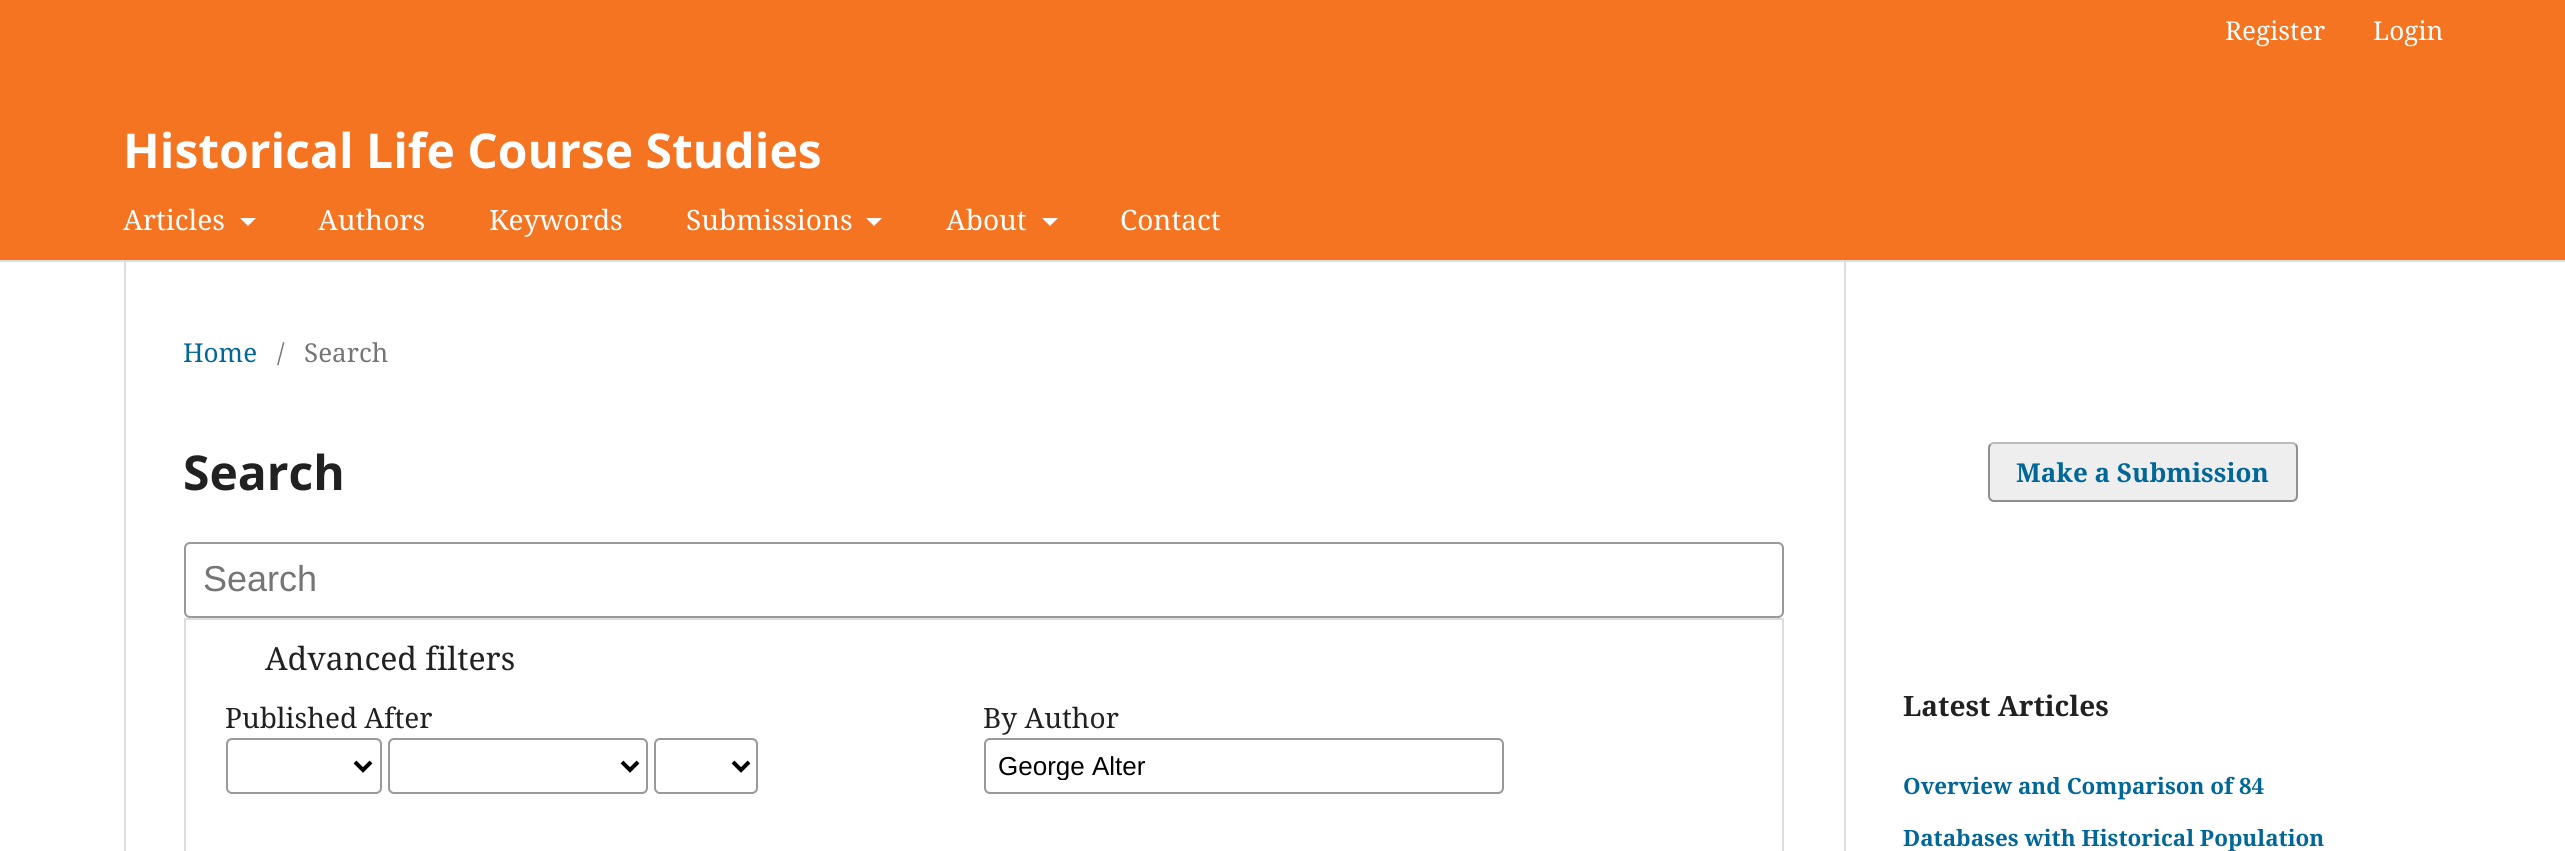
import math
import cairo

surface = cairo.ImageSurface(cairo.FORMAT_RGB24, 2565, 851)
ctx = cairo.Context(surface)
options = cairo.FontOptions()
options.set_hint_metrics(cairo.HINT_METRICS_OFF)
options.set_hint_style(cairo.HINT_STYLE_NONE)
ctx.set_font_options(options)
ctx.set_miter_limit(4)


def set_color(code):
    ctx.set_source_rgb(*(v / 255 for v in bytes.fromhex(code[-6:])))


def draw_text(x, y, s, family, size, color, bold=False, italic=False):
    ctx.select_font_face(family, cairo.FONT_SLANT_ITALIC if italic else cairo.FONT_SLANT_NORMAL, cairo.FONT_WEIGHT_BOLD if bold else cairo.FONT_WEIGHT_NORMAL)
    ctx.set_font_size(size)
    set_color(color)
    ctx.move_to(x, y)
    ctx.show_text(s)


def fill_rect(x, y, w, h, color):
    set_color(color)
    ctx.rectangle(x, y, w, h)
    ctx.fill()


def rounded_rect(x, y, w, h, r):
    ctx.new_sub_path()
    for i, (u, v) in enumerate([(x + w - r, y + h - r), (x + r, y + h - r), (x + r, y + r), (x + w - r, y + r)]):
        ctx.arc(u, v, r, i * math.pi / 2, (i + 1) * math.pi / 2)
    ctx.close_path()


set_color("#ffffff")
ctx.paint()
fill_rect(0, 0, 2565, 260, "#f57421")
fill_rect(0, 260, 2565, 2, "#dddddd")
draw_text(2225, 40, "Register", "Noto Serif", 26, "#ffffff")
draw_text(2373, 40, "Login", "Noto Serif", 26, "#ffffff")
draw_text(123, 230, "Articles", "Noto Serif", 28, "#ffffff")
ctx.new_path()
ctx.move_to(240, 218)
ctx.line_to(256, 218)
ctx.line_to(248, 226)
ctx.close_path()
ctx.fill()
draw_text(318, 230, "Authors", "Noto Serif", 28, "#ffffff")
draw_text(489, 230, "Keywords", "Noto Serif", 28, "#ffffff")
draw_text(686, 230, "Submissions", "Noto Serif", 28, "#ffffff")
ctx.new_path()
ctx.move_to(866, 218)
ctx.line_to(882, 218)
ctx.line_to(874, 226)
ctx.close_path()
ctx.fill()
draw_text(946, 230, "About", "Noto Serif", 28, "#ffffff")
ctx.new_path()
ctx.move_to(1042, 218)
ctx.line_to(1058, 218)
ctx.line_to(1050, 226)
ctx.close_path()
ctx.fill()
draw_text(1120, 230, "Contact", "Noto Serif", 28, "#ffffff")
draw_text(123, 168, "Historical Life Course Studies", "Noto Sans", 48, "#ffffff", bold=True)
fill_rect(124, 262, 2, 589, "#dddddd")
draw_text(183, 362, "Home", "Noto Serif", 26, "#006798")
draw_text(277, 362, "/", "Noto Serif", 26, "#757575")
draw_text(304, 362, "Search", "Noto Serif", 26, "#757575")
draw_text(183, 490, "Search", "Noto Sans", 48, "#212121", bold=True)
rounded_rect(185, 543, 1598, 74, 5)
set_color("#999999")
ctx.stroke()
draw_text(203, 591, "Search", "Liberation Sans", 36, "#757575")
ctx.rectangle(185, 619, 1598, 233)
set_color("#dddddd")
ctx.stroke()
draw_text(265, 670, "Advanced filters", "Noto Serif", 32, "#212121")
draw_text(225, 728, "Published After", "Noto Serif", 28, "#212121")
rounded_rect(227, 739, 154, 54, 5)
set_color("#999999")
ctx.stroke()
ctx.new_path()
ctx.move_to(355, 762)
ctx.line_to(363, 770)
ctx.line_to(371, 762)
set_color("#000000")
ctx.set_line_width(4)
ctx.stroke()
rounded_rect(389, 739, 258, 54, 5)
set_color("#999999")
ctx.set_line_width(2)
ctx.stroke()
ctx.new_path()
ctx.move_to(622, 762)
ctx.line_to(630, 770)
ctx.line_to(638, 762)
set_color("#000000")
ctx.set_line_width(4)
ctx.stroke()
rounded_rect(655, 739, 102, 54, 5)
set_color("#999999")
ctx.set_line_width(2)
ctx.stroke()
ctx.new_path()
ctx.move_to(733, 762)
ctx.line_to(741, 770)
ctx.line_to(749, 762)
set_color("#000000")
ctx.set_line_width(4)
ctx.stroke()
draw_text(983, 728, "By Author", "Noto Serif", 28, "#212121")
rounded_rect(985, 739, 518, 54, 5)
set_color("#999999")
ctx.set_line_width(2)
ctx.stroke()
ctx.save()
ctx.rectangle(998, 750, 490, 30)
ctx.clip()
draw_text(998, 775, "George Alter", "Liberation Sans", 26, "#000000")
ctx.restore()
fill_rect(1844, 262, 2, 589, "#dddddd")
set_color("#eeeeee")
rounded_rect(1988, 442, 310, 60, 6)
ctx.fill()
ctx.new_path()
ctx.move_to(1990.5, 444.5)
ctx.curve_to(1991.5, 443.5, 1992.5, 443, 1994, 443)
ctx.line_to(2292, 443)
ctx.curve_to(2293.5, 443, 2294.5, 443.5, 2295.5, 444.5)
set_color("#bbbbbb")
ctx.stroke()
ctx.new_path()
ctx.move_to(2295.5, 444.5)
ctx.curve_to(2296.5, 445.5, 2297, 446.5, 2297, 448)
ctx.line_to(2297, 496)
ctx.curve_to(2297, 497.5, 2296.5, 498.5, 2295.5, 499.5)
ctx.curve_to(2294.5, 500.5, 2293.5, 501, 2292, 501)
ctx.line_to(1994, 501)
ctx.curve_to(1992.5, 501, 1991.5, 500.5, 1990.5, 499.5)
ctx.curve_to(1989.5, 498.5, 1989, 497.5, 1989, 496)
ctx.line_to(1989, 448)
ctx.curve_to(1989, 446.5, 1989.5, 445.5, 1990.5, 444.5)
ctx.set_source_rgba(0, 0, 0, 0.4)
ctx.stroke()
draw_text(2016, 482, "Make a Submission", "Noto Serif", 26, "#006798", bold=True)
draw_text(1903, 716, "Latest Articles", "Noto Serif", 28, "#212121", bold=True)
draw_text(1903, 794, "Overview and Comparison of 84", "Noto Serif", 22.4, "#006798", bold=True)
draw_text(1903, 846, "Databases with Historical Population", "Noto Serif", 22.4, "#006798", bold=True)
surface.write_to_png("output.png")
